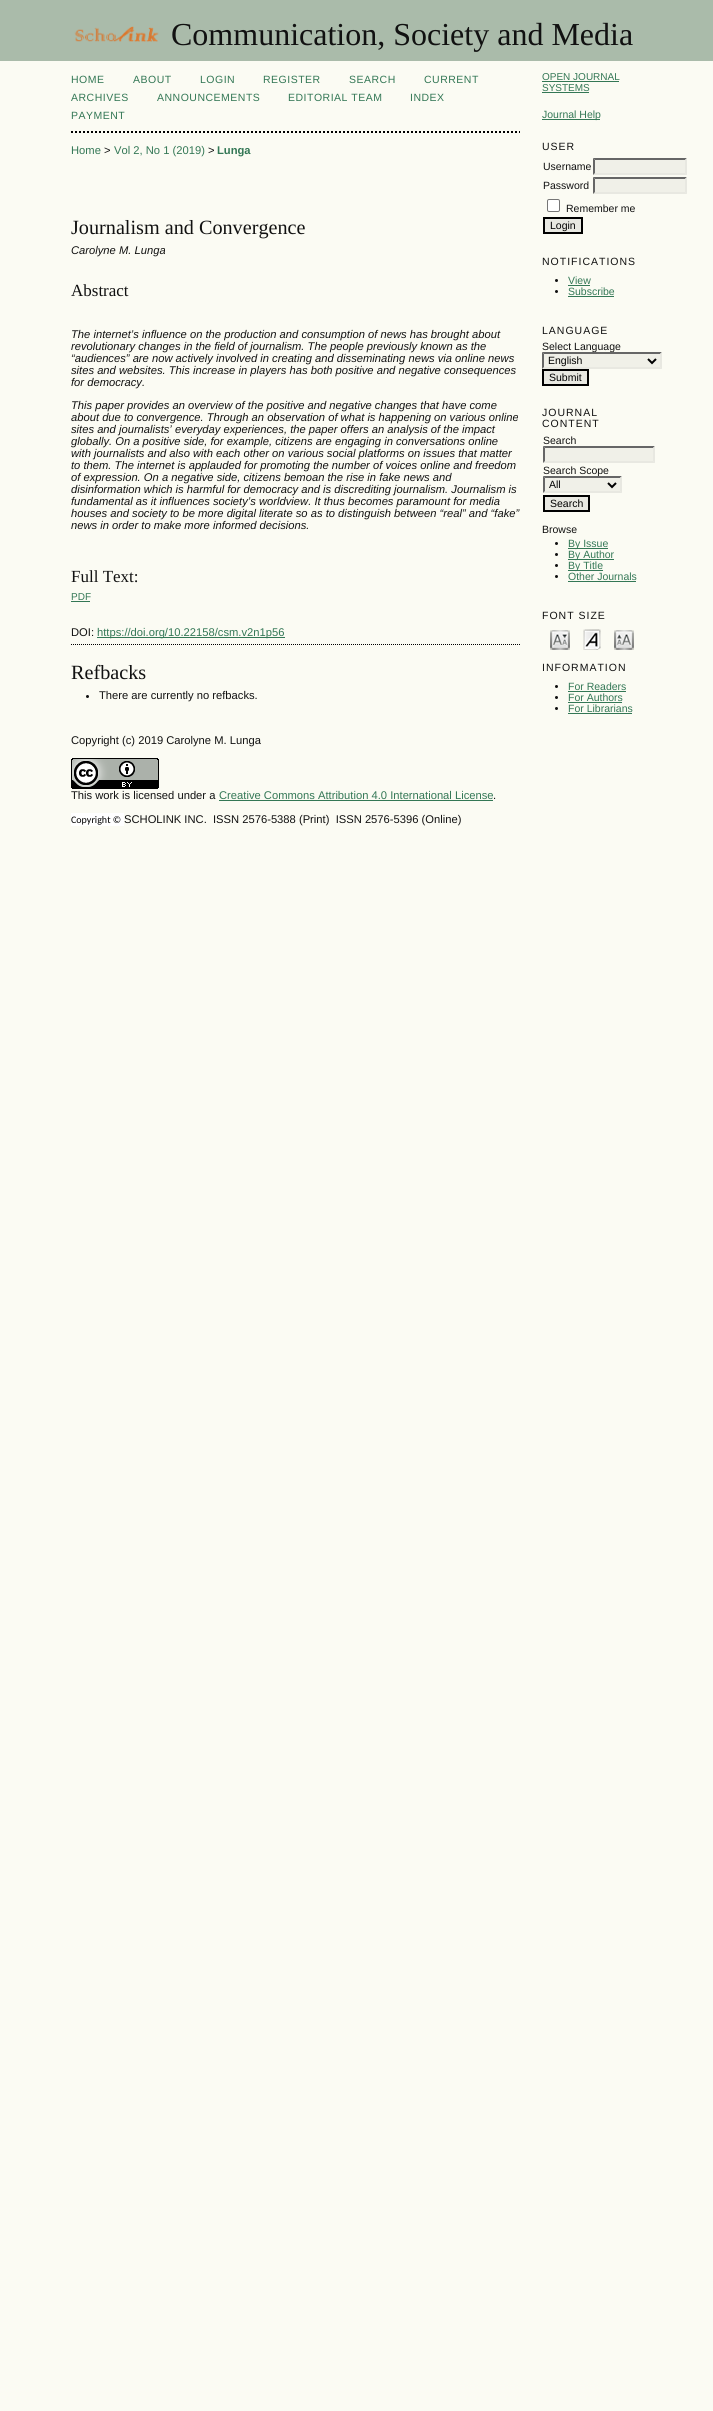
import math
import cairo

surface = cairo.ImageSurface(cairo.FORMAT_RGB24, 713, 2411)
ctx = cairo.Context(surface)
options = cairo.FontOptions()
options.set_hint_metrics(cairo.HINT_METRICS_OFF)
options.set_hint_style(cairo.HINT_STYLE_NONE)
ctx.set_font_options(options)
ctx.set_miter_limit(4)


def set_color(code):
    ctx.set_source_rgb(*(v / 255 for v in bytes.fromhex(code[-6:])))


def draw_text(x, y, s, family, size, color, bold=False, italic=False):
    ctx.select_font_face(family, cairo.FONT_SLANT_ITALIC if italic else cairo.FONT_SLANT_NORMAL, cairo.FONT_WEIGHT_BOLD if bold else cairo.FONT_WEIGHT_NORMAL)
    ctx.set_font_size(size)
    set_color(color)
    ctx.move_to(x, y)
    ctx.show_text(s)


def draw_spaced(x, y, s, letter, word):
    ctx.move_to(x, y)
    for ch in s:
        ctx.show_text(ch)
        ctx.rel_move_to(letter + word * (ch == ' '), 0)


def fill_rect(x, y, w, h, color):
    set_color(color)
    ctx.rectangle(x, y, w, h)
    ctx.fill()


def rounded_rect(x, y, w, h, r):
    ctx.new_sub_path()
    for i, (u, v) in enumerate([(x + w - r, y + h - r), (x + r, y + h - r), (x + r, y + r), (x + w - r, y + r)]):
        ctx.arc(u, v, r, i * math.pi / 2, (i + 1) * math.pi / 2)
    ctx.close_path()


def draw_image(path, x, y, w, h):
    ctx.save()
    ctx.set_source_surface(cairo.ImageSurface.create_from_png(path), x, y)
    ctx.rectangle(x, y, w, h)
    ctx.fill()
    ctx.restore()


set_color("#fbfbf3")
ctx.paint()
fill_rect(0, 0, 713, 61, "#aabbaa")
draw_image("assets/img1.png", 74, 26, 85, 16)
draw_text(171, 45, "Communication, Society and Media", "Liberation Serif", 32, "#111111")
ctx.new_path()
ctx.move_to(71, 132)
ctx.line_to(520, 132)
set_color("#000000")
ctx.set_dash([2, 2])
ctx.stroke()
ctx.select_font_face("Liberation Sans")
ctx.set_font_size(10.5)
set_color("#337755")
draw_spaced(71, 83, "HOME", 0.5, 0)
draw_spaced(133, 83, "ABOUT", 0.5, 0)
draw_spaced(200, 83, "LOGIN", 0.5, 0)
draw_spaced(263, 83, "REGISTER", 0.5, 0)
draw_spaced(349, 83, "SEARCH", 0.5, 0)
draw_spaced(424, 83, "CURRENT", 0.5, 0)
draw_spaced(71, 101, "ARCHIVES", 0.5, 0)
draw_spaced(157, 101, "ANNOUNCEMENTS", 0.5, 0)
draw_spaced(288, 101, "EDITORIAL TEAM", 0.5, 0)
draw_spaced(410, 101, "INDEX", 0.5, 0)
draw_spaced(71, 119, "PAYMENT", 0.5, 0)
draw_text(71, 154, "Home", "Liberation Sans", 11.2, "#337755")
draw_text(104, 154, ">", "Liberation Sans", 11.2, "#111111")
draw_text(114, 154, "Vol 2, No 1 (2019)", "Liberation Sans", 11.2, "#337755")
draw_text(208, 154, ">", "Liberation Sans", 11.2, "#111111")
draw_text(217, 154, "Lunga", "Liberation Sans", 11.2, "#337755", bold=True)
draw_text(71, 234, "Journalism and Convergence", "Liberation Serif", 20.2, "#111111")
draw_text(71, 254, "Carolyne M. Lunga", "Liberation Sans", 11.2, "#111111", italic=True)
draw_text(71, 296, "Abstract", "Liberation Serif", 17, "#111111")
draw_text(71, 338, "The internet’s influence on the production and consumption of news has brought about", "Liberation Sans", 11.2, "#111111", italic=True)
draw_text(71, 350, "revolutionary changes in the field of journalism. The people previously known as the", "Liberation Sans", 11.2, "#111111", italic=True)
draw_text(71, 362, "“audiences” are now actively involved in creating and disseminating news via online news", "Liberation Sans", 11.2, "#111111", italic=True)
draw_text(71, 374, "sites and websites. This increase in players has both positive and negative consequences", "Liberation Sans", 11.2, "#111111", italic=True)
draw_text(71, 386, "for democracy.", "Liberation Sans", 11.2, "#111111", italic=True)
draw_text(71, 409, "This paper provides an overview of the positive and negative changes that have come", "Liberation Sans", 11.2, "#111111", italic=True)
draw_text(71, 421, "about due to convergence. Through an observation of what is happening on various online", "Liberation Sans", 11.2, "#111111", italic=True)
draw_text(71, 433, "sites and journalists’ everyday experiences, the paper offers an analysis of the impact", "Liberation Sans", 11.2, "#111111", italic=True)
draw_text(71, 445, "globally. On a positive side, for example, citizens are engaging in conversations online", "Liberation Sans", 11.2, "#111111", italic=True)
draw_text(71, 457, "with journalists and also with each other on various social platforms on issues that matter", "Liberation Sans", 11.2, "#111111", italic=True)
draw_text(71, 469, "to them. The internet is applauded for promoting the number of voices online and freedom", "Liberation Sans", 11.2, "#111111", italic=True)
draw_text(71, 481, "of expression. On a negative side, citizens bemoan the rise in fake news and", "Liberation Sans", 11.2, "#111111", italic=True)
draw_text(71, 493, "disinformation which is harmful for democracy and is discrediting journalism. Journalism is", "Liberation Sans", 11.2, "#111111", italic=True)
draw_text(71, 505, "fundamental as it influences society’s worldview. It thus becomes paramount for media", "Liberation Sans", 11.2, "#111111", italic=True)
draw_text(71, 517, "houses and society to be more digital literate so as to distinguish between “real” and “fake”", "Liberation Sans", 11.2, "#111111", italic=True)
draw_text(71, 529, "news in order to make more informed decisions.", "Liberation Sans", 11.2, "#111111", italic=True)
draw_text(71, 582, "Full Text:", "Liberation Serif", 17, "#111111")
draw_text(71, 600, "PDF", "Liberation Sans", 10, "#337755")
fill_rect(71, 601, 19, 1, "#337755")
draw_text(71, 636, "DOI:", "Liberation Sans", 11.2, "#111111")
fill_rect(97, 637, 188, 1, "#337755")
draw_text(97, 636, "https://doi.org/10.22158/csm.v2n1p56", "Liberation Sans", 11.2, "#337755")
ctx.new_path()
ctx.move_to(71, 644.5)
ctx.line_to(520, 644.5)
set_color("#000000")
ctx.set_line_width(1)
ctx.set_dash([1, 1])
ctx.stroke()
draw_text(71, 679, "Refbacks", "Liberation Serif", 20.2, "#111111")
ctx.new_path()
ctx.arc(87.5, 696.5, 1.5, 0, 2 * math.pi)
ctx.fill()
draw_text(99, 699, "There are currently no refbacks.", "Liberation Sans", 11.2, "#111111")
draw_text(71, 744, "Copyright (c) 2019 Carolyne M. Lunga", "Liberation Sans", 11.2, "#111111")
draw_image("assets/img2.png", 71, 758, 88, 31)
draw_text(71, 799, "This work is licensed under a", "Liberation Sans", 11.2, "#111111")
draw_text(219, 799, "Creative Commons Attribution 4.0 International License", "Liberation Sans", 11.2, "#337755")
fill_rect(219, 800, 274, 1, "#337755")
draw_text(493, 799, ".", "Liberation Sans", 11.2, "#111111")
fill_rect(71, 813, 53, 13, "#ffffff")
draw_text(71, 823, "Copyright ©", "Carlito", 10, "#000000")
draw_text(124, 823, "SCHOLINK INC.  ISSN 2576-5388 (Print)  ISSN 2576-5396 (Online)", "Liberation Sans", 11.2, "#111111")
draw_text(542, 80, "OPEN JOURNAL", "Liberation Sans", 10, "#337755")
fill_rect(542, 81, 77, 1, "#337755")
draw_text(542, 91, "SYSTEMS", "Liberation Sans", 10, "#337755")
fill_rect(542, 92, 47, 1, "#337755")
fill_rect(542, 119, 58, 1, "#337755")
draw_text(542, 118, "Journal Help", "Liberation Sans", 10.5, "#337755")
set_color("#111111")
draw_spaced(542, 150, "USER", 1, 0)
draw_text(543, 170, "Username", "Liberation Sans", 10.5, "#111111")
fill_rect(593, 158, 94, 17, "#f0f0e8")
set_color("#666666")
ctx.new_path()
ctx.move_to(593, 158)
ctx.line_to(687, 158)
ctx.line_to(685, 160)
ctx.line_to(595, 160)
ctx.close_path()
ctx.fill()
set_color("#e8e8e1")
ctx.new_path()
ctx.move_to(687, 158)
ctx.line_to(687, 175)
ctx.line_to(685, 173)
ctx.line_to(685, 160)
ctx.close_path()
ctx.fill()
ctx.new_path()
ctx.move_to(687, 175)
ctx.line_to(593, 175)
ctx.line_to(595, 173)
ctx.line_to(685, 173)
ctx.close_path()
ctx.fill()
set_color("#666666")
ctx.new_path()
ctx.move_to(593, 175)
ctx.line_to(593, 158)
ctx.line_to(595, 160)
ctx.line_to(595, 173)
ctx.close_path()
ctx.fill()
draw_text(543, 189, "Password", "Liberation Sans", 10.5, "#111111")
fill_rect(593, 177, 94, 17, "#f0f0e8")
set_color("#666666")
ctx.new_path()
ctx.move_to(593, 177)
ctx.line_to(687, 177)
ctx.line_to(685, 179)
ctx.line_to(595, 179)
ctx.close_path()
ctx.fill()
set_color("#e8e8e1")
ctx.new_path()
ctx.move_to(687, 177)
ctx.line_to(687, 194)
ctx.line_to(685, 192)
ctx.line_to(685, 179)
ctx.close_path()
ctx.fill()
ctx.new_path()
ctx.move_to(687, 194)
ctx.line_to(593, 194)
ctx.line_to(595, 192)
ctx.line_to(685, 192)
ctx.close_path()
ctx.fill()
set_color("#666666")
ctx.new_path()
ctx.move_to(593, 194)
ctx.line_to(593, 177)
ctx.line_to(595, 179)
ctx.line_to(595, 192)
ctx.close_path()
ctx.fill()
set_color("#ffffff")
rounded_rect(547.5, 199.5, 12, 12, 1.5)
ctx.fill_preserve()
set_color("#767676")
ctx.set_dash([])
ctx.stroke()
draw_text(566, 212, "Remember me", "Liberation Sans", 10.5, "#111111")
set_color("#e8e8e1")
ctx.rectangle(544, 218, 38, 15)
ctx.fill_preserve()
set_color("#000000")
ctx.set_line_width(2)
ctx.stroke()
draw_text(550, 229, "Login", "Liberation Sans", 10.5, "#000000")
set_color("#111111")
draw_spaced(542, 265, "NOTIFICATIONS", 1, 0)
ctx.new_path()
ctx.arc(556.5, 280.5, 1.5, 0, 2 * math.pi)
ctx.fill()
draw_text(568, 284, "View", "Liberation Sans", 10.5, "#337755")
fill_rect(568, 285, 22, 1, "#337755")
set_color("#111111")
ctx.new_path()
ctx.arc(556.5, 291.5, 1.5, 0, 2 * math.pi)
ctx.fill()
draw_text(568, 295, "Subscribe", "Liberation Sans", 10.5, "#337755")
fill_rect(568, 296, 46, 1, "#337755")
set_color("#111111")
draw_spaced(542, 334, "LANGUAGE", 1, 0)
draw_text(542, 350, "Select Language", "Liberation Sans", 10.5, "#111111")
fill_rect(542, 352, 120, 17, "#f0f0e8")
set_color("#666666")
ctx.new_path()
ctx.move_to(542, 352)
ctx.line_to(662, 352)
ctx.line_to(660, 354)
ctx.line_to(544, 354)
ctx.close_path()
ctx.fill()
set_color("#e8e8e1")
ctx.new_path()
ctx.move_to(662, 352)
ctx.line_to(662, 369)
ctx.line_to(660, 367)
ctx.line_to(660, 354)
ctx.close_path()
ctx.fill()
ctx.new_path()
ctx.move_to(662, 369)
ctx.line_to(542, 369)
ctx.line_to(544, 367)
ctx.line_to(660, 367)
ctx.close_path()
ctx.fill()
set_color("#666666")
ctx.new_path()
ctx.move_to(542, 369)
ctx.line_to(542, 352)
ctx.line_to(544, 354)
ctx.line_to(544, 367)
ctx.close_path()
ctx.fill()
ctx.new_path()
ctx.move_to(648, 359)
ctx.line_to(652, 363)
ctx.line_to(656, 359)
set_color("#000000")
ctx.stroke()
draw_text(548, 364, "English", "Liberation Sans", 10.5, "#000000")
set_color("#e8e8e1")
ctx.rectangle(543, 370, 45, 15)
ctx.fill_preserve()
set_color("#000000")
ctx.stroke()
draw_text(549, 381, "Submit", "Liberation Sans", 10.5, "#000000")
set_color("#111111")
draw_spaced(542, 416, "JOURNAL", 1, 0)
draw_spaced(542, 427, "CONTENT", 1, 0)
draw_text(543, 444, "Search", "Liberation Sans", 10.5, "#111111")
fill_rect(543, 446, 112, 17, "#f0f0e8")
set_color("#666666")
ctx.new_path()
ctx.move_to(543, 446)
ctx.line_to(655, 446)
ctx.line_to(653, 448)
ctx.line_to(545, 448)
ctx.close_path()
ctx.fill()
set_color("#e8e8e1")
ctx.new_path()
ctx.move_to(655, 446)
ctx.line_to(655, 463)
ctx.line_to(653, 461)
ctx.line_to(653, 448)
ctx.close_path()
ctx.fill()
ctx.new_path()
ctx.move_to(655, 463)
ctx.line_to(543, 463)
ctx.line_to(545, 461)
ctx.line_to(653, 461)
ctx.close_path()
ctx.fill()
set_color("#666666")
ctx.new_path()
ctx.move_to(543, 463)
ctx.line_to(543, 446)
ctx.line_to(545, 448)
ctx.line_to(545, 461)
ctx.close_path()
ctx.fill()
draw_text(543, 474, "Search Scope", "Liberation Sans", 10.5, "#111111")
fill_rect(543, 476, 79, 17, "#f0f0e8")
set_color("#666666")
ctx.new_path()
ctx.move_to(543, 476)
ctx.line_to(622, 476)
ctx.line_to(620, 478)
ctx.line_to(545, 478)
ctx.close_path()
ctx.fill()
set_color("#e8e8e1")
ctx.new_path()
ctx.move_to(622, 476)
ctx.line_to(622, 493)
ctx.line_to(620, 491)
ctx.line_to(620, 478)
ctx.close_path()
ctx.fill()
ctx.new_path()
ctx.move_to(622, 493)
ctx.line_to(543, 493)
ctx.line_to(545, 491)
ctx.line_to(620, 491)
ctx.close_path()
ctx.fill()
set_color("#666666")
ctx.new_path()
ctx.move_to(543, 493)
ctx.line_to(543, 476)
ctx.line_to(545, 478)
ctx.line_to(545, 491)
ctx.close_path()
ctx.fill()
ctx.new_path()
ctx.move_to(608, 483)
ctx.line_to(612, 487)
ctx.line_to(616, 483)
set_color("#000000")
ctx.stroke()
draw_text(549, 488, "All", "Liberation Sans", 10.5, "#000000")
set_color("#e8e8e1")
ctx.rectangle(544, 496, 45, 15)
ctx.fill_preserve()
set_color("#000000")
ctx.stroke()
draw_text(550, 507, "Search", "Liberation Sans", 10.5, "#000000")
draw_text(542, 533, "Browse", "Liberation Sans", 10.5, "#111111")
ctx.new_path()
ctx.arc(556.5, 543.5, 1.5, 0, 2 * math.pi)
ctx.fill()
fill_rect(568, 548, 40, 1, "#337755")
draw_text(568, 547, "By Issue", "Liberation Sans", 10.5, "#337755")
set_color("#111111")
ctx.new_path()
ctx.arc(556.5, 554.5, 1.5, 0, 2 * math.pi)
ctx.fill()
fill_rect(568, 559, 46, 1, "#337755")
draw_text(568, 558, "By Author", "Liberation Sans", 10.5, "#337755")
set_color("#111111")
ctx.new_path()
ctx.arc(556.5, 565.5, 1.5, 0, 2 * math.pi)
ctx.fill()
fill_rect(568, 570, 35, 1, "#337755")
draw_text(568, 569, "By Title", "Liberation Sans", 10.5, "#337755")
set_color("#111111")
ctx.new_path()
ctx.arc(556.5, 576.5, 1.5, 0, 2 * math.pi)
ctx.fill()
draw_text(568, 580, "Other Journals", "Liberation Sans", 10.5, "#337755")
fill_rect(568, 581, 68, 1, "#337755")
set_color("#111111")
draw_spaced(542, 619, "FONT SIZE", 1, 0)
draw_image("assets/img3.png", 550, 630, 20, 20)
draw_image("assets/img4.png", 583, 629, 18, 21)
draw_image("assets/img5.png", 614, 630, 20, 20)
draw_spaced(542, 671, "INFORMATION", 1, 0)
ctx.new_path()
ctx.arc(556.5, 686.5, 1.5, 0, 2 * math.pi)
ctx.fill()
draw_text(568, 690, "For Readers", "Liberation Sans", 10.5, "#337755")
fill_rect(568, 691, 58, 1, "#337755")
set_color("#111111")
ctx.new_path()
ctx.arc(556.5, 697.5, 1.5, 0, 2 * math.pi)
ctx.fill()
draw_text(568, 701, "For Authors", "Liberation Sans", 10.5, "#337755")
fill_rect(568, 702, 54, 1, "#337755")
set_color("#111111")
ctx.new_path()
ctx.arc(556.5, 708.5, 1.5, 0, 2 * math.pi)
ctx.fill()
draw_text(568, 712, "For Librarians", "Liberation Sans", 10.5, "#337755")
fill_rect(568, 713, 64, 1, "#337755")
surface.write_to_png("output.png")
